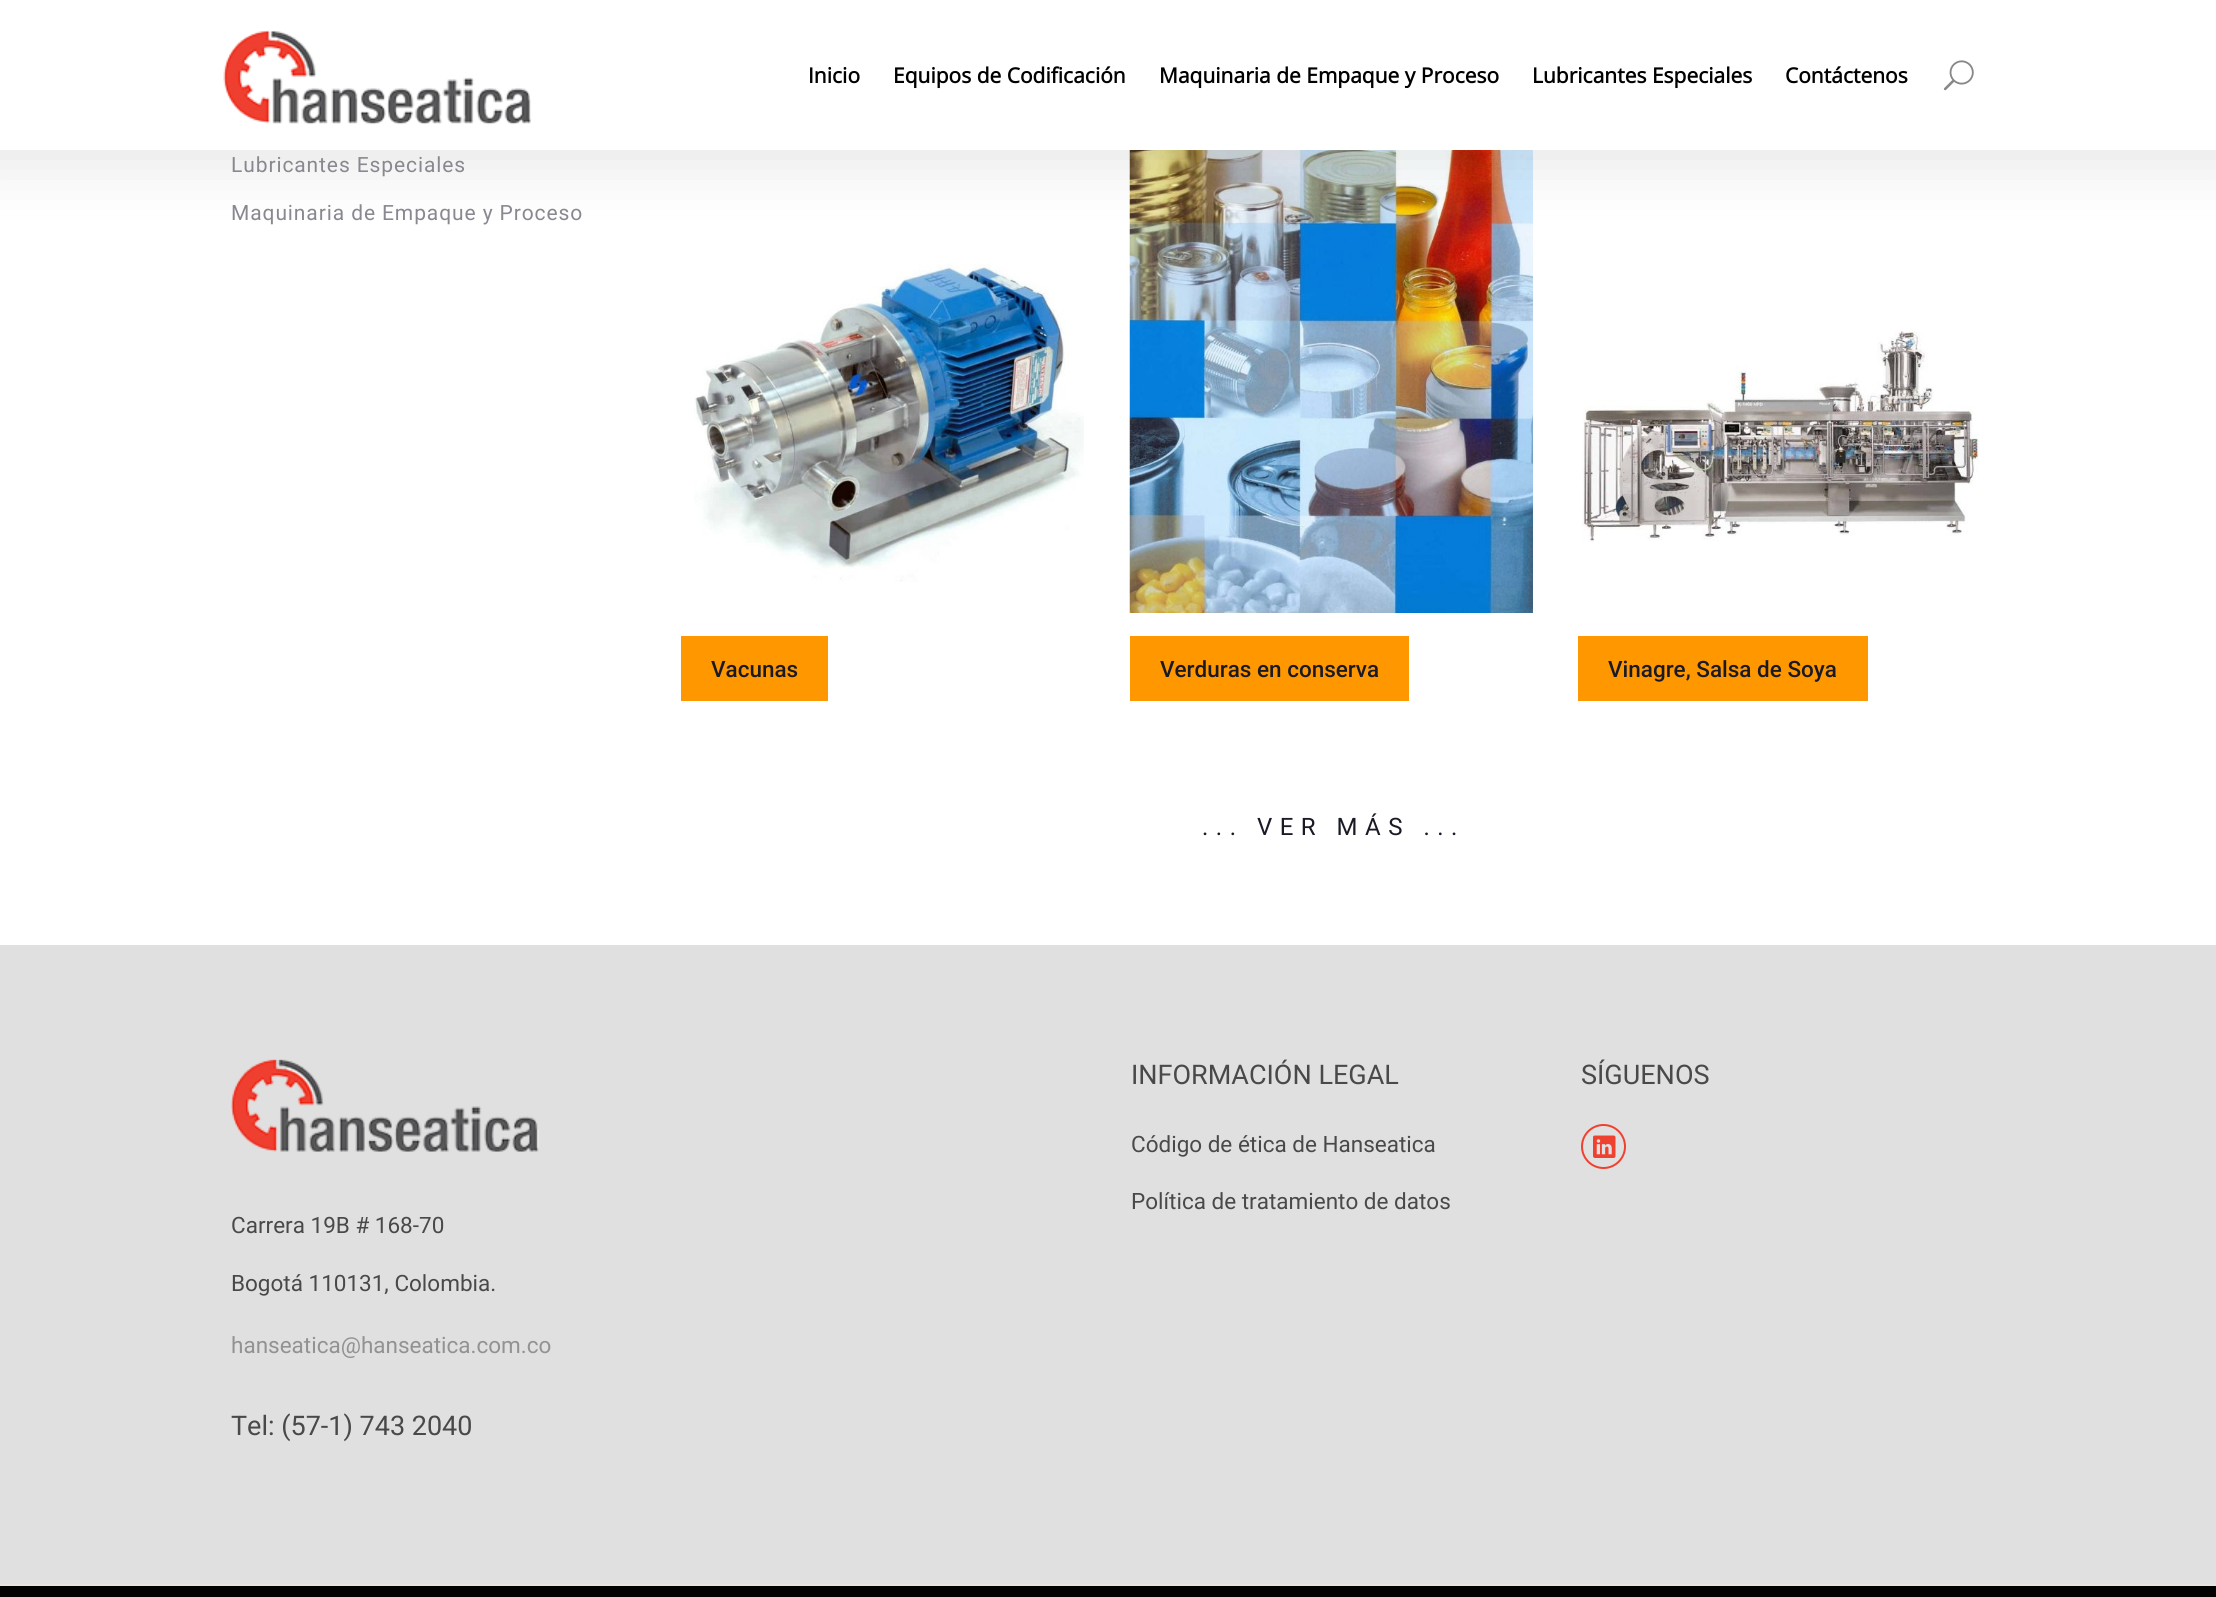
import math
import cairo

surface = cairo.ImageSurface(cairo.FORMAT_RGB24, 2216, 1597)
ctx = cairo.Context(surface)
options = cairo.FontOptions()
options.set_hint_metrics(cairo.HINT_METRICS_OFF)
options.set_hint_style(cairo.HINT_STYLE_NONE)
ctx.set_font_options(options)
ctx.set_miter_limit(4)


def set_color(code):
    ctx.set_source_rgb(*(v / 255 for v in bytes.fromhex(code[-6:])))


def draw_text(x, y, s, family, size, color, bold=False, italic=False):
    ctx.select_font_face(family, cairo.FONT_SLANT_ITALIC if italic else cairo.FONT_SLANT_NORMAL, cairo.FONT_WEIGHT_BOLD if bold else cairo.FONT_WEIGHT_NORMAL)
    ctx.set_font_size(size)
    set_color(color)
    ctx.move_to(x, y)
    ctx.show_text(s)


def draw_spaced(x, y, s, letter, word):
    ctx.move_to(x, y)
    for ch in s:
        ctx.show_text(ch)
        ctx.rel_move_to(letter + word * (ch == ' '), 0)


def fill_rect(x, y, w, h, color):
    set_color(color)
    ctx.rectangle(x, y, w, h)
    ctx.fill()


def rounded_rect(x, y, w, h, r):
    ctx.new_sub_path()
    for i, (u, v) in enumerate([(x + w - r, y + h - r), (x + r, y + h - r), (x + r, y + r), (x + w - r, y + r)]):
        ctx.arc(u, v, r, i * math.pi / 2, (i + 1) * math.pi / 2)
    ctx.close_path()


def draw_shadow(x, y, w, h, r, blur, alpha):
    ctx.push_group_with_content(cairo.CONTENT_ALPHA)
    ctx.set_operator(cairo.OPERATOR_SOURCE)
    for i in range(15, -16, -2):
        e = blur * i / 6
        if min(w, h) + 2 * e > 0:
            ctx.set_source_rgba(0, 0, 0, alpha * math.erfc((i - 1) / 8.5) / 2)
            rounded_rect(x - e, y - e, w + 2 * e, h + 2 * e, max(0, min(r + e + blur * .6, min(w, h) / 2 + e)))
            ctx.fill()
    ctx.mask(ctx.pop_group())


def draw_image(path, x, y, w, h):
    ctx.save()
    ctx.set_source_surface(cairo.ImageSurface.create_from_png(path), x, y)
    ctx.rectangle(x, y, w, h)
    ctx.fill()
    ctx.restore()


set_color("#ffffff")
ctx.paint()
draw_image("assets/img4.png", 1129, 150, 404, 463)
set_color("#000000")
draw_shadow(-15, -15, 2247, 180, 0, 30, 0.1)
fill_rect(0, 0, 2216, 150, "#ffffff")
draw_image("assets/img1.png", 223, 30, 308, 95)
draw_text(808, 83, "Inicio", "Open Sans", 21, "#000000", bold=True)
draw_text(893, 83, "Equipos de Codificación", "Open Sans", 21, "#000000", bold=True)
draw_text(1159, 83, "Maquinaria de Empaque y Proceso", "Open Sans", 21, "#000000", bold=True)
draw_text(1532, 83, "Lubricantes Especiales", "Open Sans", 21, "#000000", bold=True)
draw_text(1785, 83, "Contáctenos", "Open Sans", 21, "#000000", bold=True)
draw_image("assets/img2.png", 1943, 60, 31, 31)
ctx.select_font_face("Roboto")
set_color("#888890")
draw_spaced(231, 172, "Lubricantes Especiales", 0.9, 0)
draw_spaced(231, 220, "Maquinaria de Empaque y Proceso", 0.9, 0)
draw_image("assets/img3.png", 694, 264, 390, 318)
fill_rect(681, 636, 147, 65, "#ff9800")
draw_text(711, 677, "Vacunas", "Roboto Medium", 22.5, "#1a1a26")
fill_rect(1130, 636, 279, 65, "#ff9800")
draw_text(1160, 677, "Verduras en conserva", "Roboto Medium", 22.5, "#1a1a26")
draw_image("assets/img5.png", 1581, 331, 399, 211)
fill_rect(1578, 636, 290, 65, "#ff9800")
draw_text(1608, 677, "Vinagre, Salsa de Soya", "Roboto Medium", 22.5, "#1a1a26")
ctx.select_font_face("Roboto")
ctx.set_font_size(24)
draw_spaced(1202, 835, "... VER MÁS ...", 7.5, 0)
fill_rect(0, 945, 2216, 639, "#e0e0e0")
draw_text(1131, 1084, "INFORMACIÓN LEGAL", "Roboto", 27, "#494949")
draw_text(1131, 1152, "Código de ética de Hanseatica", "Roboto", 22.5, "#494949")
draw_text(1131, 1209, "Política de tratamiento de datos", "Roboto", 22.5, "#494949")
draw_text(1581, 1084, "SÍGUENOS", "Roboto", 27, "#494949")
ctx.new_path()
ctx.arc(1603.5, 1146.5, 21.5, 0, 2 * math.pi)
set_color("#ef4130")
ctx.stroke()
draw_image("assets/img6.png", 1593, 1135, 23, 23)
draw_image("assets/img7.png", 231, 1059, 308, 93)
draw_text(231, 1233, "Carrera 19B # 168-70", "Roboto", 22.5, "#494949")
draw_text(231, 1291, "Bogotá 110131, Colombia.", "Roboto", 22.5, "#494949")
draw_text(231, 1353, "hanseatica@hanseatica.com.co", "Roboto", 22.5, "#929292")
draw_text(231, 1435, "Tel: (57-1) 743 2040", "Roboto", 27, "#494949")
fill_rect(0, 1586, 2216, 11, "#000000")
fill_rect(0, 1584, 2216, 2, "#e6e5e1")
surface.write_to_png("output.png")
